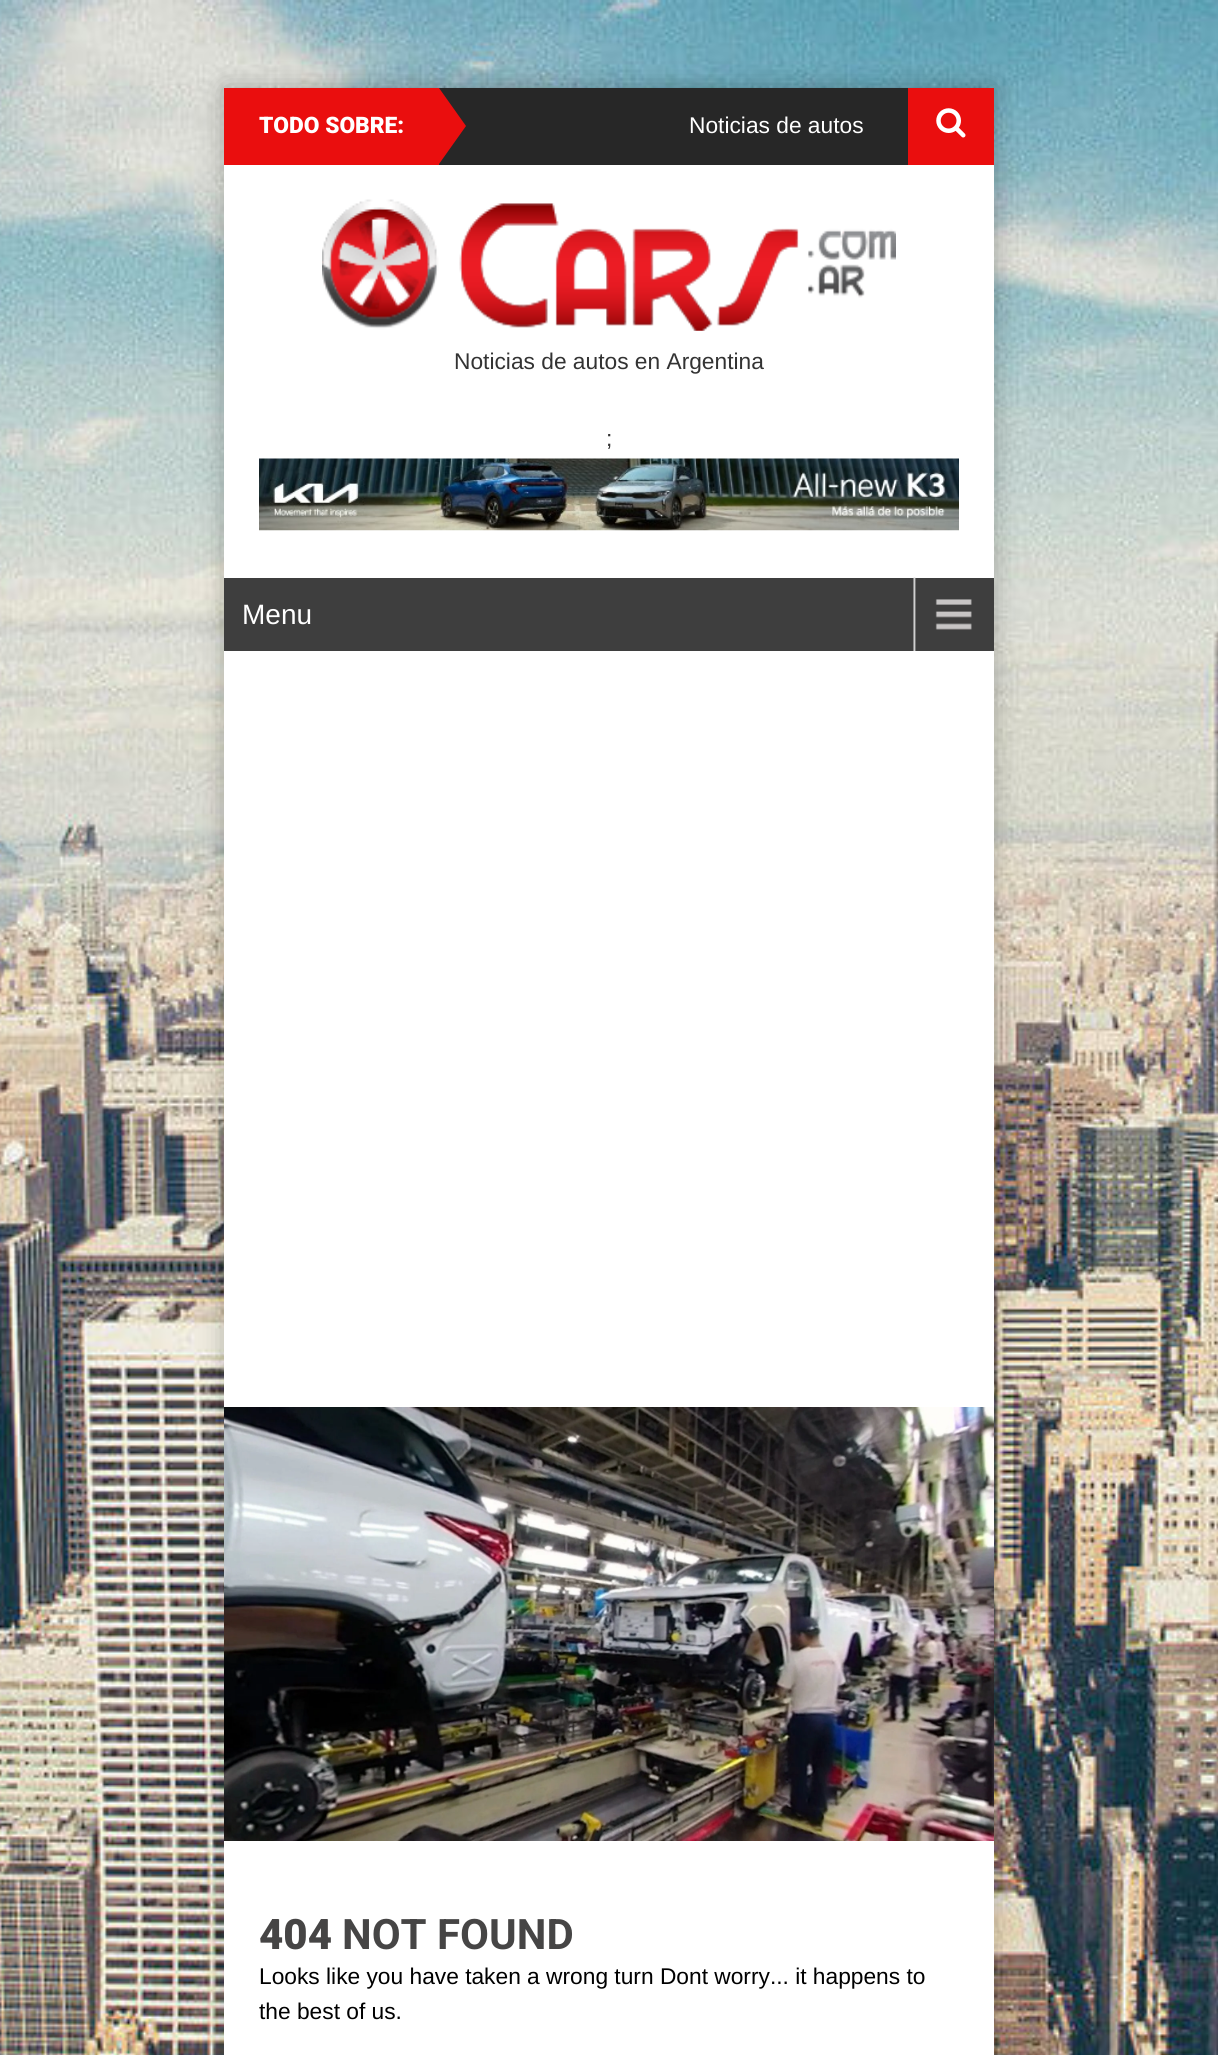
import math
import cairo

surface = cairo.ImageSurface(cairo.FORMAT_RGB24, 1218, 2055)
ctx = cairo.Context(surface)
options = cairo.FontOptions()
options.set_hint_metrics(cairo.HINT_METRICS_OFF)
options.set_hint_style(cairo.HINT_STYLE_NONE)
ctx.set_font_options(options)
ctx.set_miter_limit(4)


def set_color(code):
    ctx.set_source_rgb(*(v / 255 for v in bytes.fromhex(code[-6:])))


def draw_text(x, y, s, family, size, color, bold=False, italic=False):
    ctx.select_font_face(family, cairo.FONT_SLANT_ITALIC if italic else cairo.FONT_SLANT_NORMAL, cairo.FONT_WEIGHT_BOLD if bold else cairo.FONT_WEIGHT_NORMAL)
    ctx.set_font_size(size)
    set_color(color)
    ctx.move_to(x, y)
    ctx.show_text(s)


def fill_rect(x, y, w, h, color):
    set_color(color)
    ctx.rectangle(x, y, w, h)
    ctx.fill()


def rounded_rect(x, y, w, h, r):
    ctx.new_sub_path()
    for i, (u, v) in enumerate([(x + w - r, y + h - r), (x + r, y + h - r), (x + r, y + r), (x + w - r, y + r)]):
        ctx.arc(u, v, r, i * math.pi / 2, (i + 1) * math.pi / 2)
    ctx.close_path()


def draw_shadow(x, y, w, h, r, blur, alpha):
    ctx.push_group_with_content(cairo.CONTENT_ALPHA)
    ctx.set_operator(cairo.OPERATOR_SOURCE)
    for i in range(15, -16, -2):
        e = blur * i / 6
        if min(w, h) + 2 * e > 0:
            ctx.set_source_rgba(0, 0, 0, alpha * math.erfc((i - 1) / 8.5) / 2)
            rounded_rect(x - e, y - e, w + 2 * e, h + 2 * e, max(0, min(r + e + blur * .6, min(w, h) / 2 + e)))
            ctx.fill()
    ctx.mask(ctx.pop_group())


def draw_image(path, x, y, w, h):
    ctx.save()
    ctx.set_source_surface(cairo.ImageSurface.create_from_png(path), x, y)
    ctx.rectangle(x, y, w, h)
    ctx.fill()
    ctx.restore()


set_color("#ffffff")
ctx.paint()
draw_image("assets/img1.png", 0, 0, 1218, 2055)
set_color("#000000")
draw_shadow(226, 89, 766, 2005, 0, 13, 0.3)
fill_rect(224, 165, 770, 1890, "#ffffff")
fill_rect(439, 88, 469, 77, "#272727")
fill_rect(224, 88, 215, 77, "#ea0e0e")
draw_text(259, 133, "TODO SOBRE:", "Roboto Black", 22.75, "#ffffff")
set_color("#ea0e0e")
ctx.new_path()
ctx.move_to(439, 164)
ctx.line_to(439, 88)
ctx.line_to(466, 126)
ctx.close_path()
ctx.fill()
draw_text(689, 133, "Noticias de autos", "Arimo", 22.75, "#ffffff")
fill_rect(908, 88, 86, 77, "#ea0e0e")
draw_image("assets/img2.png", 936, 108, 30, 30)
draw_image("assets/img3.png", 322, 199, 574, 132)
draw_text(454, 369, "Noticias de autos en Argentina", "Arimo", 22.75, "#333333")
draw_text(606, 446, ";", "Arimo", 22.75, "#333333")
draw_image("assets/img4.png", 259, 458, 700, 73)
fill_rect(224, 578, 770, 73, "#3e3e3e")
draw_image("assets/img5.png", 913, 577, 59, 74)
draw_text(242, 624, "Menu", "Arimo", 28, "#ffffff")
draw_image("assets/img6.png", 224, 1407, 770, 434)
draw_text(259, 1949, "404", "Roboto Black", 42, "#464545")
draw_text(342, 1949, "NOT FOUND", "Roboto", 42, "#464545", bold=True)
draw_text(259, 1984, "Looks like you have taken a wrong turn Dont worry... it happens to", "Arimo", 22.75, "#000000")
draw_text(259, 2019, "the best of us.", "Arimo", 22.75, "#000000")
surface.write_to_png("output.png")
